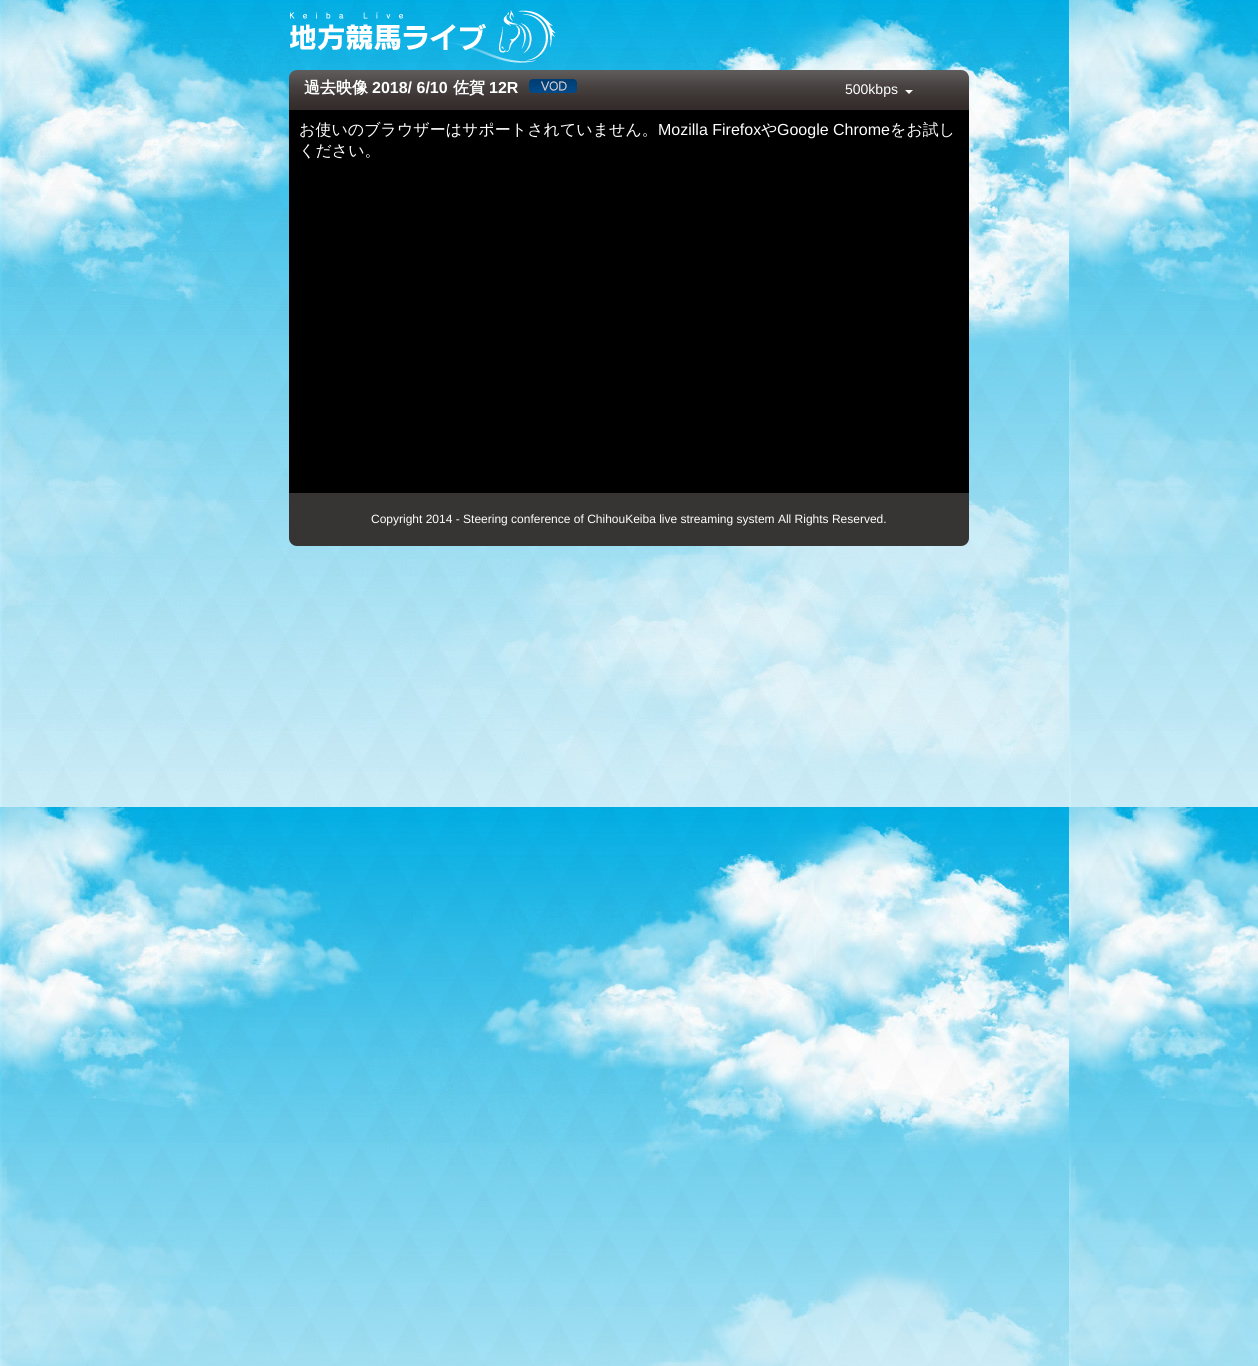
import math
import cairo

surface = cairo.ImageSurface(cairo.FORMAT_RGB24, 1258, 1366)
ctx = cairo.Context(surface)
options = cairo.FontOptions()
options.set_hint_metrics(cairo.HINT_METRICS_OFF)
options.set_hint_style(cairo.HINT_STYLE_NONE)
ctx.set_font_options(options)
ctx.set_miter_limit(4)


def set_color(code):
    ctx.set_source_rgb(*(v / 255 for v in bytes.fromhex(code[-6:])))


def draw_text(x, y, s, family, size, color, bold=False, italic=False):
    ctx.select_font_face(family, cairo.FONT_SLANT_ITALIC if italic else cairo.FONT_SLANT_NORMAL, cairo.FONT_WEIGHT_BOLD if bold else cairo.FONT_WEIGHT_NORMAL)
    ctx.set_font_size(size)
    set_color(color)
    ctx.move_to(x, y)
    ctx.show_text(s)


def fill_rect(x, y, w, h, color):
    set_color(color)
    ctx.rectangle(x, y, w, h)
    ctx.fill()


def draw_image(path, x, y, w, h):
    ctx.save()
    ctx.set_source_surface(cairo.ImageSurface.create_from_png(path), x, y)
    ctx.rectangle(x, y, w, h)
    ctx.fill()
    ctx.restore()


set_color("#ffffff")
ctx.paint()
draw_image("assets/img1.png", 0, 0, 1258, 1366)
draw_image("assets/img2.png", 290, 10, 266, 53)
draw_image("assets/img3.png", 289, 70, 680, 40)
draw_text(304, 93, "過去映像", "WenQuanYi Zen Hei", 16, "#ffffff", bold=True)
draw_text(372, 93, "2018/ 6/10", "Liberation Sans", 16, "#ffffff", bold=True)
draw_text(453, 93, "佐賀", "WenQuanYi Zen Hei", 16, "#ffffff", bold=True)
draw_text(489, 93, "12R", "Liberation Sans", 16, "#ffffff", bold=True)
draw_image("assets/img4.png", 529, 79, 48, 14)
draw_text(845, 94, "500kbps", "Liberation Sans", 14, "#ffffff")
ctx.new_path()
ctx.move_to(905, 90)
ctx.line_to(913, 90)
ctx.line_to(909, 94)
ctx.close_path()
ctx.fill()
fill_rect(289, 110, 680, 383, "#000000")
draw_text(299, 135, "お使いのブラウザーはサポートされていません。", "WenQuanYi Zen Hei Medium", 16, "#ffffff")
draw_text(658, 135, "Mozilla Firefox", "Liberation Sans", 16, "#ffffff")
draw_text(761, 135, "や", "WenQuanYi Zen Hei Medium", 16, "#ffffff")
draw_text(777, 135, "Google Chrome", "Liberation Sans", 16, "#ffffff")
draw_text(890, 135, "をお試し", "WenQuanYi Zen Hei Medium", 16, "#ffffff")
draw_text(299, 156, "ください。", "WenQuanYi Zen Hei Medium", 16, "#ffffff")
draw_image("assets/img5.png", 289, 493, 680, 53)
draw_text(371, 523, "Copyright 2014 - Steering conference of ChihouKeiba live streaming system All Rights Reserved.", "Liberation Sans", 12, "#ffffff")
surface.write_to_png("output.png")
